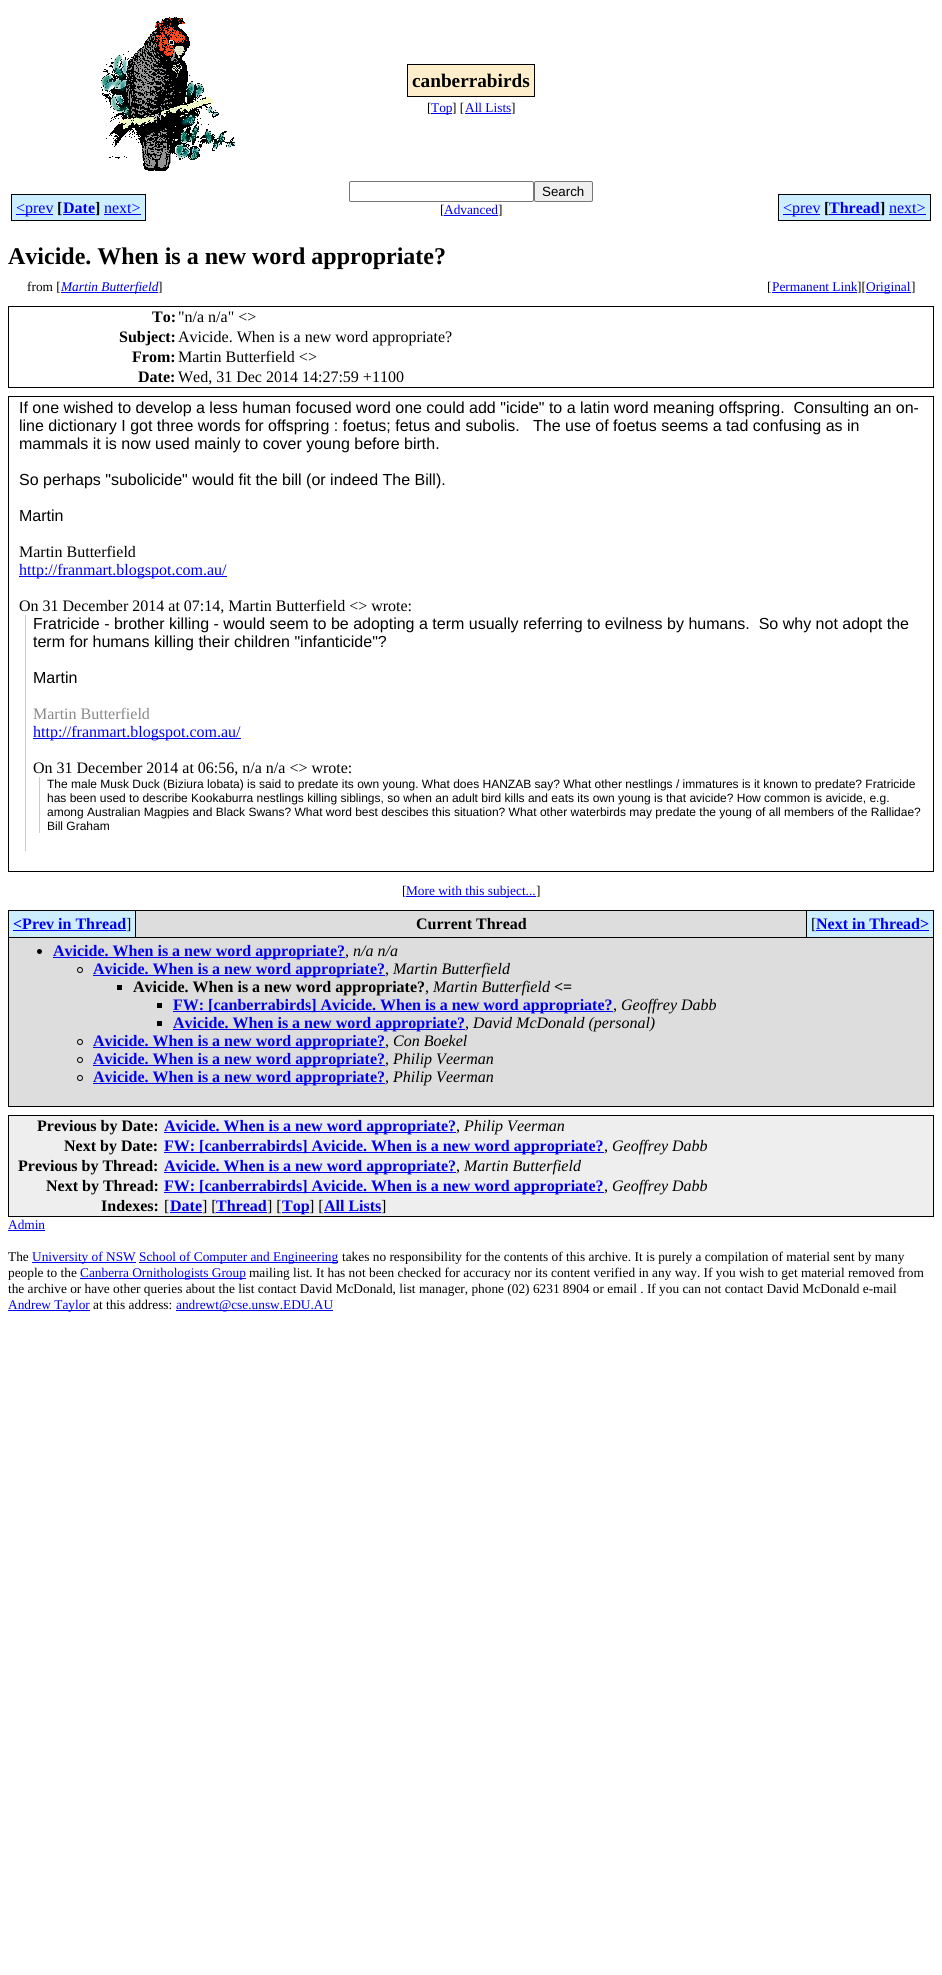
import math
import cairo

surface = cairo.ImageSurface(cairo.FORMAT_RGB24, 942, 1975)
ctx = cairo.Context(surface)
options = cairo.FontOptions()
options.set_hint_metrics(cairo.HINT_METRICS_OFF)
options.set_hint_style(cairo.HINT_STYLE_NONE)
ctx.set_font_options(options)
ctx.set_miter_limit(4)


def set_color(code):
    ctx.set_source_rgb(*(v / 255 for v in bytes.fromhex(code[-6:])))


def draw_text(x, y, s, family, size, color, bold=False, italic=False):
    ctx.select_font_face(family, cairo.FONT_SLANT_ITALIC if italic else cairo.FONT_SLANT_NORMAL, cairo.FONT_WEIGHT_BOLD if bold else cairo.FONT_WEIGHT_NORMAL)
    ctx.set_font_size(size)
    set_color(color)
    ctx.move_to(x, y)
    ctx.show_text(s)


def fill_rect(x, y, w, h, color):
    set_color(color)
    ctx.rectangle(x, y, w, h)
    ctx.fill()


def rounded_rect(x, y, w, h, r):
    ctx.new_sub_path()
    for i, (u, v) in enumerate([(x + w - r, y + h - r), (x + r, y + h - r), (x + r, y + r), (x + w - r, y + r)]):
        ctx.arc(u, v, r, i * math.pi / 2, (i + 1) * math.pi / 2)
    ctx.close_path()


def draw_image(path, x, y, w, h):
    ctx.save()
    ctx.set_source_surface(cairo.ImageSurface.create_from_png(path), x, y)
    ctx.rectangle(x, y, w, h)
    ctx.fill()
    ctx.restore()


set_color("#ffffff")
ctx.paint()
draw_image("assets/img1.png", 101, 17, 134, 154)
set_color("#ffeecc")
ctx.rectangle(407.5, 64.5, 127, 32)
ctx.fill_preserve()
set_color("#000000")
ctx.set_line_width(1)
ctx.stroke()
draw_text(412, 87, "canberrabirds", "Liberation Serif", 19.25, "#000000", bold=True)
draw_text(427, 112, "[", "Liberation Serif", 13.33, "#000000")
fill_rect(431, 113, 21, 1, "#0000ee")
draw_text(431, 112, "Top", "Liberation Serif", 13.33, "#0000ee")
draw_text(452, 112, "] [", "Liberation Serif", 13.33, "#000000")
draw_text(465, 112, "All Lists", "Liberation Serif", 13.33, "#0000ee")
draw_text(511, 112, "]", "Liberation Serif", 13.33, "#000000")
fill_rect(465, 113, 46, 1, "#0000ee")
fill_rect(12, 195, 41, 25, "#cceeff")
fill_rect(16, 214, 37, 1, "#0000ee")
fill_rect(53, 194, 10, 27, "#cceeff")
draw_text(16, 213, "<prev", "Liberation Serif", 16, "#0000ee")
fill_rect(11, 194, 42, 1, "#000000")
fill_rect(11, 220, 42, 1, "#000000")
fill_rect(11, 194, 1, 27, "#000000")
fill_rect(53, 220, 42, 1, "#000000")
draw_text(57, 213, "[", "Liberation Serif", 16, "#000000", bold=True)
fill_rect(63, 195, 32, 25, "#cceeff")
fill_rect(63, 214, 32, 1, "#0000ee")
draw_text(63, 213, "Date", "Liberation Serif", 16, "#0000ee", bold=True)
fill_rect(53, 194, 42, 1, "#000000")
fill_rect(95, 194, 9, 27, "#cceeff")
fill_rect(95, 194, 51, 1, "#000000")
draw_text(95, 213, "]", "Liberation Serif", 16, "#000000", bold=True)
fill_rect(95, 220, 9, 1, "#000000")
fill_rect(104, 195, 41, 25, "#cceeff")
draw_text(104, 213, "next>", "Liberation Serif", 16, "#0000ee")
fill_rect(145, 194, 1, 27, "#000000")
fill_rect(104, 220, 42, 1, "#000000")
fill_rect(104, 214, 37, 1, "#0000ee")
rounded_rect(349.5, 181.5, 184, 20, 1.5)
set_color("#767676")
ctx.stroke()
set_color("#efefef")
rounded_rect(534.5, 181.5, 58, 20, 1.5)
ctx.fill_preserve()
set_color("#767676")
ctx.stroke()
draw_text(542, 196, "Search", "Liberation Sans", 13.33, "#000000")
draw_text(440, 214, "[", "Liberation Serif", 13.33, "#000000")
fill_rect(444, 215, 54, 1, "#0000ee")
draw_text(444, 214, "Advanced", "Liberation Serif", 13.33, "#0000ee")
draw_text(498, 214, "]", "Liberation Serif", 13.33, "#000000")
fill_rect(779, 195, 41, 25, "#cceeff")
fill_rect(783, 214, 37, 1, "#0000ee")
fill_rect(820, 194, 9, 27, "#cceeff")
draw_text(783, 213, "<prev", "Liberation Serif", 16, "#0000ee")
fill_rect(778, 194, 42, 1, "#000000")
fill_rect(778, 220, 42, 1, "#000000")
fill_rect(778, 194, 1, 27, "#000000")
fill_rect(820, 220, 60, 1, "#000000")
draw_text(824, 213, "[", "Liberation Serif", 16, "#000000", bold=True)
fill_rect(829, 195, 51, 25, "#cceeff")
fill_rect(829, 214, 51, 1, "#0000ee")
draw_text(829, 213, "Thread", "Liberation Serif", 16, "#0000ee", bold=True)
fill_rect(820, 194, 60, 1, "#000000")
fill_rect(880, 194, 9, 27, "#cceeff")
fill_rect(880, 194, 51, 1, "#000000")
draw_text(880, 213, "]", "Liberation Serif", 16, "#000000", bold=True)
fill_rect(880, 220, 9, 1, "#000000")
fill_rect(889, 195, 41, 25, "#cceeff")
draw_text(889, 213, "next>", "Liberation Serif", 16, "#0000ee")
fill_rect(930, 194, 1, 27, "#000000")
fill_rect(889, 220, 42, 1, "#000000")
fill_rect(889, 214, 37, 1, "#0000ee")
draw_text(8, 264, "Avicide. When is a new word appropriate?", "Liberation Serif", 24, "#000000", bold=True)
draw_text(27, 291, "from [", "Liberation Serif", 13.33, "#000000")
fill_rect(61, 292, 97, 1, "#0000ee")
draw_text(61, 291, "Martin Butterfield", "Liberation Serif", 13.33, "#0000ee", italic=True)
draw_text(158, 291, "]", "Liberation Serif", 13.33, "#000000")
draw_text(767, 291, "[", "Liberation Serif", 13.33, "#000000")
fill_rect(772, 292, 85, 1, "#0000ee")
draw_text(772, 291, "Permanent Link", "Liberation Serif", 13.33, "#0000ee")
draw_text(857, 291, "][", "Liberation Serif", 13.33, "#000000")
fill_rect(866, 292, 45, 1, "#0000ee")
draw_text(866, 291, "Original", "Liberation Serif", 13.33, "#0000ee")
draw_text(911, 291, "]", "Liberation Serif", 13.33, "#000000")
ctx.rectangle(8.5, 306.5, 925, 81)
ctx.stroke()
draw_text(152, 322, "To:", "Liberation Serif", 16, "#000000", bold=True)
draw_text(178, 322, "\"n/a n/a\" <>", "Liberation Serif", 16, "#000000")
draw_text(119, 342, "Subject:", "Liberation Serif", 16, "#000000", bold=True)
draw_text(178, 342, "Avicide. When is a new word appropriate?", "Liberation Serif", 16, "#000000")
draw_text(132, 362, "From:", "Liberation Serif", 16, "#000000", bold=True)
draw_text(178, 362, "Martin Butterfield <>", "Liberation Serif", 16, "#000000")
draw_text(138, 382, "Date:", "Liberation Serif", 16, "#000000", bold=True)
draw_text(178, 382, "Wed, 31 Dec 2014 14:27:59 +1100", "Liberation Serif", 16, "#000000")
ctx.rectangle(8.5, 396.5, 925, 475)
ctx.stroke()
draw_text(19, 413, "If one wished to develop a less human focused word one could add \"icide\" to a latin word meaning offspring.  Consulting an on-", "Liberation Sans", 16, "#000000")
draw_text(19, 431, "line dictionary I got three words for offspring : foetus; fetus and subolis.   The use of foetus seems a tad confusing as in", "Liberation Sans", 16, "#000000")
draw_text(19, 449, "mammals it is now used mainly to cover young before birth.", "Liberation Sans", 16, "#000000")
draw_text(19, 485, "So perhaps \"subolicide\" would fit the bill (or indeed The Bill).", "Liberation Sans", 16, "#000000")
draw_text(19, 521, "Martin", "Liberation Sans", 16, "#000000")
draw_text(19, 557, "Martin Butterfield", "Liberation Serif", 16, "#000000")
fill_rect(19, 576, 208, 1, "#0000ee")
draw_text(19, 575, "http://franmart.blogspot.com.au/", "Liberation Serif", 16, "#0000ee")
draw_text(19, 611, "On 31 December 2014 at 07:14, Martin Butterfield <> wrote:", "Liberation Serif", 16, "#000000")
fill_rect(25, 615, 1, 236, "#cccccc")
draw_text(33, 629, "Fratricide - brother killing - would seem to be adopting a term usually referring to evilness by humans.  So why not adopt the", "Liberation Sans", 16, "#000000")
draw_text(33, 647, "term for humans killing their children \"infanticide\"?", "Liberation Sans", 16, "#000000")
draw_text(33, 683, "Martin", "Liberation Sans", 16, "#000000")
draw_text(33, 719, "Martin Butterfield", "Liberation Serif", 16, "#888888")
fill_rect(33, 738, 208, 1, "#0000ee")
draw_text(33, 737, "http://franmart.blogspot.com.au/", "Liberation Serif", 16, "#0000ee")
draw_text(33, 773, "On 31 December 2014 at 06:56, n/a n/a <> wrote:", "Liberation Serif", 16, "#000000")
fill_rect(39, 777, 1, 56, "#cccccc")
draw_text(47, 788, "The male Musk Duck (Biziura lobata) is said to predate its own young. What does HANZAB say? What other nestlings / immatures is it known to predate? Fratricide", "Liberation Sans", 12, "#000000")
draw_text(47, 802, "has been used to describe Kookaburra nestlings killing siblings, so when an adult bird kills and eats its own young is that avicide? How common is avicide, e.g.", "Liberation Sans", 12, "#000000")
draw_text(47, 816, "among Australian Magpies and Black Swans? What word best descibes this situation? What other waterbirds may predate the young of all members of the Rallidae?", "Liberation Sans", 12, "#000000")
draw_text(47, 830, "Bill Graham", "Liberation Sans", 12, "#000000")
draw_text(402, 895, "[", "Liberation Serif", 13.33, "#000000")
fill_rect(406, 896, 130, 1, "#0000ee")
draw_text(406, 895, "More with this subject...", "Liberation Serif", 13.33, "#0000ee")
draw_text(536, 895, "]", "Liberation Serif", 13.33, "#000000")
fill_rect(8, 910, 926, 197, "#000000")
fill_rect(9, 911, 126, 26, "#cceeff")
draw_text(13, 929, "<Prev in Thread", "Liberation Serif", 16, "#0000ee", bold=True)
fill_rect(13, 930, 113, 1, "#0000ee")
draw_text(126, 929, "]", "Liberation Serif", 16, "#000000")
fill_rect(136, 911, 670, 26, "#dddddd")
draw_text(416, 929, "Current Thread", "Liberation Serif", 16, "#000000", bold=True)
fill_rect(807, 911, 126, 26, "#cceeff")
draw_text(811, 929, "[", "Liberation Serif", 16, "#000000")
draw_text(816, 929, "Next in Thread>", "Liberation Serif", 16, "#0000ee", bold=True)
fill_rect(816, 930, 113, 1, "#0000ee")
fill_rect(9, 938, 924, 168, "#dddddd")
set_color("#000000")
ctx.new_path()
ctx.arc(39.5, 951.5, 2.5, 0, 2 * math.pi)
ctx.fill()
fill_rect(53, 957, 292, 1, "#0000ee")
draw_text(53, 956, "Avicide. When is a new word appropriate?", "Liberation Serif", 16, "#0000ee", bold=True)
draw_text(353, 956, "n/a n/a", "Liberation Serif", 16, "#000000", italic=True)
draw_text(345, 956, ",", "Liberation Serif", 16, "#000000")
ctx.new_path()
ctx.arc(80, 970, 2.5, 0, 2 * math.pi)
ctx.stroke()
fill_rect(93, 975, 292, 1, "#0000ee")
draw_text(93, 974, "Avicide. When is a new word appropriate?", "Liberation Serif", 16, "#0000ee", bold=True)
draw_text(393, 974, "Martin Butterfield", "Liberation Serif", 16, "#000000", italic=True)
draw_text(385, 974, ",", "Liberation Serif", 16, "#000000")
fill_rect(117, 985, 5, 5, "#000000")
draw_text(133, 992, "Avicide. When is a new word appropriate?", "Liberation Serif", 16, "#000000", bold=True)
draw_text(433, 992, "Martin Butterfield", "Liberation Serif", 16, "#000000", italic=True)
draw_text(554, 992, "<=", "Liberation Serif", 16, "#000000", bold=True)
draw_text(425, 992, ",", "Liberation Serif", 16, "#000000")
fill_rect(157, 1003, 5, 5, "#000000")
fill_rect(173, 1011, 440, 1, "#0000ee")
draw_text(173, 1010, "FW: [canberrabirds] Avicide. When is a new word appropriate?", "Liberation Serif", 16, "#0000ee", bold=True)
draw_text(621, 1010, "Geoffrey Dabb", "Liberation Serif", 16, "#000000", italic=True)
draw_text(613, 1010, ",", "Liberation Serif", 16, "#000000")
fill_rect(157, 1021, 5, 5, "#000000")
fill_rect(173, 1029, 292, 1, "#0000ee")
draw_text(173, 1028, "Avicide. When is a new word appropriate?", "Liberation Serif", 16, "#0000ee", bold=True)
draw_text(473, 1028, "David McDonald (personal)", "Liberation Serif", 16, "#000000", italic=True)
draw_text(465, 1028, ",", "Liberation Serif", 16, "#000000")
ctx.new_path()
ctx.arc(80, 1042, 2.5, 0, 2 * math.pi)
ctx.stroke()
fill_rect(93, 1047, 292, 1, "#0000ee")
draw_text(93, 1046, "Avicide. When is a new word appropriate?", "Liberation Serif", 16, "#0000ee", bold=True)
draw_text(393, 1046, "Con Boekel", "Liberation Serif", 16, "#000000", italic=True)
draw_text(385, 1046, ",", "Liberation Serif", 16, "#000000")
ctx.new_path()
ctx.arc(80, 1060, 2.5, 0, 2 * math.pi)
ctx.stroke()
fill_rect(93, 1065, 292, 1, "#0000ee")
draw_text(93, 1064, "Avicide. When is a new word appropriate?", "Liberation Serif", 16, "#0000ee", bold=True)
draw_text(393, 1064, "Philip Veerman", "Liberation Serif", 16, "#000000", italic=True)
draw_text(385, 1064, ",", "Liberation Serif", 16, "#000000")
ctx.new_path()
ctx.arc(80, 1078, 2.5, 0, 2 * math.pi)
ctx.stroke()
fill_rect(93, 1083, 292, 1, "#0000ee")
draw_text(93, 1082, "Avicide. When is a new word appropriate?", "Liberation Serif", 16, "#0000ee", bold=True)
draw_text(393, 1082, "Philip Veerman", "Liberation Serif", 16, "#000000", italic=True)
draw_text(385, 1082, ",", "Liberation Serif", 16, "#000000")
set_color("#eeeeee")
ctx.rectangle(8.5, 1115.5, 925, 101)
ctx.fill_preserve()
set_color("#000000")
ctx.stroke()
draw_text(37, 1131, "Previous by Date:", "Liberation Serif", 16, "#000000", bold=True)
fill_rect(164, 1132, 292, 1, "#0000ee")
draw_text(164, 1131, "Avicide. When is a new word appropriate?", "Liberation Serif", 16, "#0000ee", bold=True)
draw_text(456, 1131, ",", "Liberation Serif", 16, "#000000")
draw_text(464, 1131, "Philip Veerman", "Liberation Serif", 16, "#000000", italic=True)
draw_text(64, 1151, "Next by Date:", "Liberation Serif", 16, "#000000", bold=True)
fill_rect(164, 1152, 440, 1, "#0000ee")
draw_text(164, 1151, "FW: [canberrabirds] Avicide. When is a new word appropriate?", "Liberation Serif", 16, "#0000ee", bold=True)
draw_text(604, 1151, ",", "Liberation Serif", 16, "#000000")
draw_text(612, 1151, "Geoffrey Dabb", "Liberation Serif", 16, "#000000", italic=True)
draw_text(18, 1171, "Previous by Thread:", "Liberation Serif", 16, "#000000", bold=True)
fill_rect(164, 1172, 292, 1, "#0000ee")
draw_text(164, 1171, "Avicide. When is a new word appropriate?", "Liberation Serif", 16, "#0000ee", bold=True)
draw_text(456, 1171, ",", "Liberation Serif", 16, "#000000")
draw_text(464, 1171, "Martin Butterfield", "Liberation Serif", 16, "#000000", italic=True)
draw_text(46, 1191, "Next by Thread:", "Liberation Serif", 16, "#000000", bold=True)
fill_rect(164, 1192, 440, 1, "#0000ee")
draw_text(164, 1191, "FW: [canberrabirds] Avicide. When is a new word appropriate?", "Liberation Serif", 16, "#0000ee", bold=True)
draw_text(604, 1191, ",", "Liberation Serif", 16, "#000000")
draw_text(612, 1191, "Geoffrey Dabb", "Liberation Serif", 16, "#000000", italic=True)
draw_text(101, 1211, "Indexes:", "Liberation Serif", 16, "#000000", bold=True)
draw_text(164, 1211, "[", "Liberation Serif", 16, "#000000")
draw_text(170, 1211, "Date", "Liberation Serif", 16, "#0000ee", bold=True)
fill_rect(170, 1212, 32, 1, "#0000ee")
draw_text(202, 1211, "] [", "Liberation Serif", 16, "#000000")
draw_text(216, 1211, "Thread", "Liberation Serif", 16, "#0000ee", bold=True)
fill_rect(216, 1212, 51, 1, "#0000ee")
draw_text(267, 1211, "] [", "Liberation Serif", 16, "#000000")
fill_rect(282, 1212, 27, 1, "#0000ee")
draw_text(282, 1211, "Top", "Liberation Serif", 16, "#0000ee", bold=True)
draw_text(309, 1211, "] [", "Liberation Serif", 16, "#000000")
draw_text(324, 1211, "All Lists", "Liberation Serif", 16, "#0000ee", bold=True)
fill_rect(324, 1212, 57, 1, "#0000ee")
draw_text(381, 1211, "]", "Liberation Serif", 16, "#000000")
draw_text(8, 1229, "Admin", "Liberation Serif", 13.33, "#0000ee")
fill_rect(8, 1230, 37, 1, "#0000ee")
draw_text(8, 1261, "The", "Liberation Serif", 13.33, "#000000")
fill_rect(32, 1262, 104, 1, "#0000ee")
draw_text(32, 1261, "University of NSW", "Liberation Serif", 13.33, "#0000ee")
fill_rect(139, 1262, 199, 1, "#0000ee")
draw_text(139, 1261, "School of Computer and Engineering", "Liberation Serif", 13.33, "#0000ee")
draw_text(342, 1261, "takes no responsibility for the contents of this archive. It is purely a compilation of material sent by many", "Liberation Serif", 13.33, "#000000")
draw_text(8, 1277, "people to the", "Liberation Serif", 13.33, "#000000")
fill_rect(80, 1278, 166, 1, "#0000ee")
draw_text(80, 1277, "Canberra Ornithologists Group", "Liberation Serif", 13.33, "#0000ee")
draw_text(249, 1277, "mailing list. It has not been checked for accuracy nor its content verified in any way. If you wish to get material removed from", "Liberation Serif", 13.33, "#000000")
draw_text(8, 1293, "the archive or have other queries about the list contact David McDonald, list manager, phone (02) 6231 8904 or email . If you can not contact David McDonald e-mail", "Liberation Serif", 13.33, "#000000")
fill_rect(8, 1310, 82, 1, "#0000ee")
draw_text(8, 1309, "Andrew Taylor", "Liberation Serif", 13.33, "#0000ee")
draw_text(93, 1309, "at this address:", "Liberation Serif", 13.33, "#000000")
fill_rect(176, 1310, 157, 1, "#0000ee")
draw_text(176, 1309, "andrewt@cse.unsw.EDU.AU", "Liberation Serif", 13.33, "#0000ee")
surface.write_to_png("output.png")
